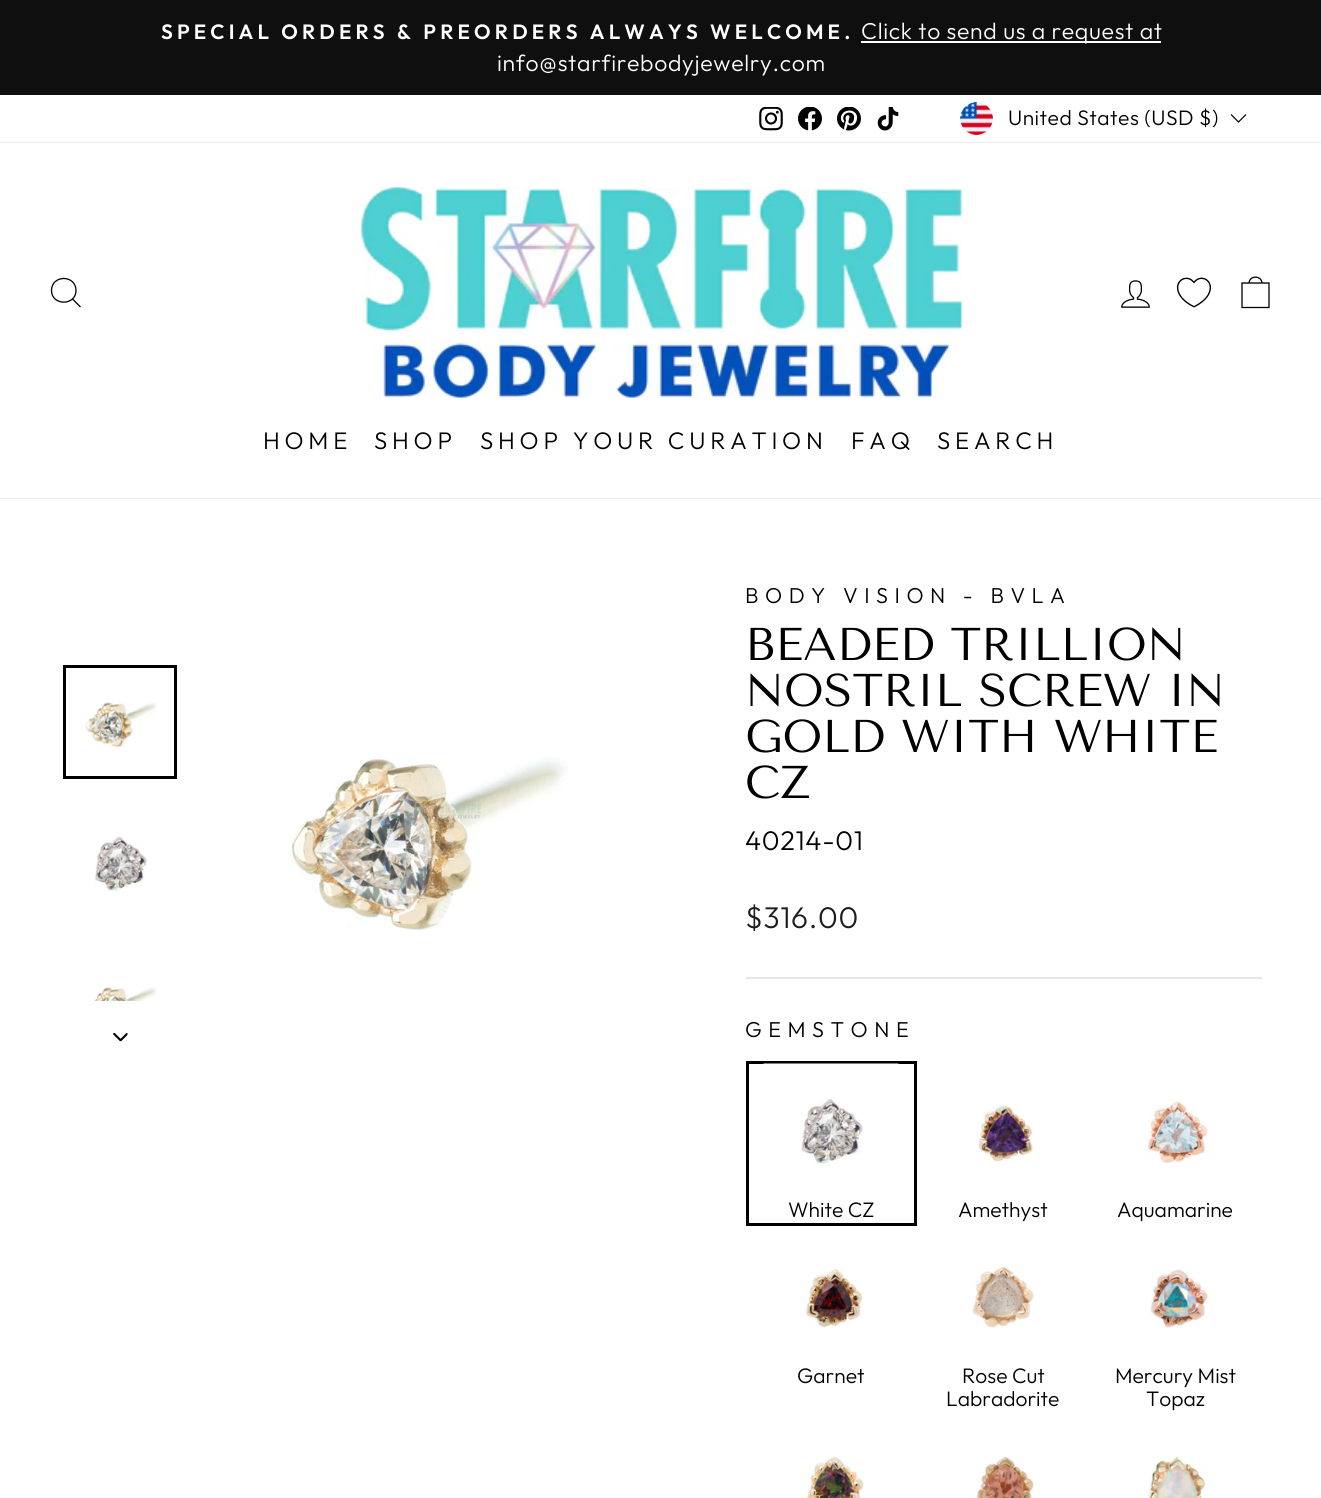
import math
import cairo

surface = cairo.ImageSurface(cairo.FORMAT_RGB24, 1321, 1498)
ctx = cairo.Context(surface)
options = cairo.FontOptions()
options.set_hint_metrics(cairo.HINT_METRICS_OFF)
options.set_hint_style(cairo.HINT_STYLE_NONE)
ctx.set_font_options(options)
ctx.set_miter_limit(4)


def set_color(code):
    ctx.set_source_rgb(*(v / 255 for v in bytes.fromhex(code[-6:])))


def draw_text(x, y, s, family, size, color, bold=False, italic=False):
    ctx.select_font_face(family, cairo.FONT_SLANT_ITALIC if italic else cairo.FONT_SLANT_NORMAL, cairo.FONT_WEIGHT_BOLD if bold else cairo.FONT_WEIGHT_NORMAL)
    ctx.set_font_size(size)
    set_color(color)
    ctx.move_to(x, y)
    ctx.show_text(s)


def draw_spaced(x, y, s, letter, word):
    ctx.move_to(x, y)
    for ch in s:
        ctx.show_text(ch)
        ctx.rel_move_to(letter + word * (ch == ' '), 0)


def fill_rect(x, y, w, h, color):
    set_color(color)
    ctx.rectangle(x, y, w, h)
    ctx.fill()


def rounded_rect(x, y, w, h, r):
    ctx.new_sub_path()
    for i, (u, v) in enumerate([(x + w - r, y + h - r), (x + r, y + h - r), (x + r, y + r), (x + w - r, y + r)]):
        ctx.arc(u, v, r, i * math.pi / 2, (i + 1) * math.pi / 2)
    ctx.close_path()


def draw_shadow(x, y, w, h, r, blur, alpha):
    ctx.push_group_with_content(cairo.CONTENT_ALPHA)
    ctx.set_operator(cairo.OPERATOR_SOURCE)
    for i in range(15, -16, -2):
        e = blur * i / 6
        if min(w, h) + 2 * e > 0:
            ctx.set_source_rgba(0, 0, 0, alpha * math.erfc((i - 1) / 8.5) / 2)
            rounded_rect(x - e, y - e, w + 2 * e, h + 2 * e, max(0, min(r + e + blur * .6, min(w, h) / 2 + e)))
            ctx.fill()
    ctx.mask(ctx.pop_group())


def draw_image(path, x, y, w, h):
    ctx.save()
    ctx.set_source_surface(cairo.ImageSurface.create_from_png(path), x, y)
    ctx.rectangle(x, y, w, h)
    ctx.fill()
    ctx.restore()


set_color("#ffffff")
ctx.paint()
fill_rect(0, 0, 1321, 95, "#0f0f0f")
ctx.select_font_face("Outfit SemiBold")
ctx.set_font_size(20.65)
set_color("#ffffff")
draw_spaced(161, 39, "SPECIAL ORDERS & PREORDERS ALWAYS WELCOME.", 4.15, 0)
fill_rect(861, 41, 300, 2, "#ffffff")
ctx.select_font_face("Outfit Light")
ctx.set_font_size(23)
draw_spaced(861, 39, "Click to send us a request at", 0.7, 0)
draw_spaced(497, 71, "info@starfirebodyjewelry.com", 0.7, 0)
draw_image("assets/img1.png", 759, 107, 24, 24)
draw_image("assets/img2.png", 798, 107, 24, 24)
draw_image("assets/img3.png", 837, 107, 24, 24)
draw_image("assets/img4.png", 877, 107, 22, 24)
draw_image("assets/img5.png", 960, 102, 33, 33)
ctx.set_font_size(21)
set_color("#000000")
draw_spaced(1008, 125, "United States (USD $)", 0.5, 0)
ctx.new_path()
ctx.move_to(1231, 114.5)
ctx.line_to(1238.5, 122)
ctx.line_to(1246, 114.5)
ctx.set_line_width(1.2)
ctx.stroke()
ctx.save()
ctx.set_fill_rule(cairo.FILL_RULE_EVEN_ODD)
ctx.new_path()
ctx.move_to(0, 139)
ctx.line_to(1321, 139)
ctx.line_to(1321, 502)
ctx.line_to(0, 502)
ctx.close_path()
ctx.move_to(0, 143)
ctx.line_to(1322, 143)
ctx.line_to(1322, 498)
ctx.line_to(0, 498)
ctx.close_path()
ctx.clip()
set_color("#000000")
draw_shadow(0, 143, 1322, 355, 0, 1, 0.2)
ctx.restore()
ctx.new_path()
ctx.move_to(76, 290.5)
ctx.curve_to(76, 306, 51.5, 306, 51.5, 290.5)
ctx.curve_to(51.5, 274.5, 76, 274.5, 76, 290.5)
ctx.close_path()
ctx.move_to(80.5, 307)
ctx.line_to(72.5, 299)
ctx.set_line_width(1.3)
ctx.stroke()
draw_image("assets/img6.png", 361, 187, 601, 211)
draw_image("assets/img7.png", 1121, 280, 29, 28)
draw_image("assets/img8.png", 1176, 277, 35, 31)
ctx.new_path()
ctx.move_to(1242, 283)
ctx.line_to(1269, 283)
ctx.line_to(1269, 307.5)
ctx.line_to(1242, 307.5)
ctx.close_path()
ctx.move_to(1249, 283.5)
ctx.curve_to(1249, 275, 1262, 275, 1262, 283.5)
ctx.stroke()
ctx.set_font_size(24)
draw_spaced(263, 449, "HOME", 4.75, 0)
draw_spaced(374, 449, "SHOP", 4.75, 0)
draw_spaced(480, 449, "SHOP YOUR CURATION", 4.75, 0)
draw_spaced(851, 449, "FAQ", 4.75, 0)
draw_spaced(937, 449, "SEARCH", 4.75, 0)
draw_image("assets/img9.png", 85, 702, 72, 46)
ctx.rectangle(64.5, 666.5, 111, 111)
ctx.set_line_width(3)
ctx.stroke()
draw_image("assets/img10.png", 94, 836, 53, 55)
draw_image("assets/img11.png", 85, 987, 72, 14)
draw_image("assets/img12.png", 113, 1032, 15, 10)
draw_image("assets/img13.png", 291, 756, 277, 174)
ctx.set_font_size(21.6)
draw_spaced(745, 603, "BODY VISION - BVLA", 6.5, 0)
draw_text(745, 660, "BEADED TRILLION", "Tenor Sans", 45.9, "#000000")
draw_text(745, 706, "NOSTRIL SCREW IN", "Tenor Sans", 45.9, "#000000")
draw_text(745, 752, "GOLD WITH WHITE", "Tenor Sans", 45.9, "#000000")
draw_text(745, 798, "CZ", "Tenor Sans", 45.9, "#000000")
ctx.select_font_face("Outfit Light")
ctx.set_font_size(27)
draw_spaced(745, 850, "40214-01", 0.7, 0)
ctx.set_font_size(30)
set_color("#1c1d1d")
draw_spaced(745, 928, "$316.00", 0.7, 0)
fill_rect(746, 977, 516, 2, "#e8e8e1")
ctx.set_font_size(21.6)
set_color("#000000")
draw_spaced(745, 1037, "GEMSTONE", 6.5, 0)
ctx.rectangle(747.5, 1062.5, 168, 162)
ctx.stroke()
draw_image("assets/img14.png", 763, 1063, 136, 103)
draw_text(788, 1217, "White CZ", "Outfit Light", 21, "#000000")
draw_image("assets/img15.png", 977, 1105, 58, 61)
draw_text(958, 1217, "Amethyst", "Outfit Light", 21, "#000000")
draw_image("assets/img16.png", 1147, 1099, 62, 64)
draw_text(1117, 1217, "Aquamarine", "Outfit Light", 21, "#000000")
draw_image("assets/img17.png", 804, 1268, 60, 60)
draw_text(797, 1383, "Garnet", "Outfit Light", 21, "#000000")
draw_image("assets/img18.png", 972, 1266, 62, 62)
draw_text(962, 1383, "Rose Cut", "Outfit Light", 21, "#000000")
draw_text(946, 1406, "Labradorite", "Outfit Light", 21, "#000000")
draw_image("assets/img19.png", 1150, 1269, 59, 59)
draw_text(1115, 1383, "Mercury Mist", "Outfit Light", 21, "#000000")
draw_text(1146, 1406, "Topaz", "Outfit Light", 21, "#000000")
draw_image("assets/img20.png", 806, 1456, 59, 42)
draw_image("assets/img21.png", 976, 1457, 58, 41)
draw_image("assets/img22.png", 1148, 1455, 61, 43)
surface.write_to_png("output.png")
